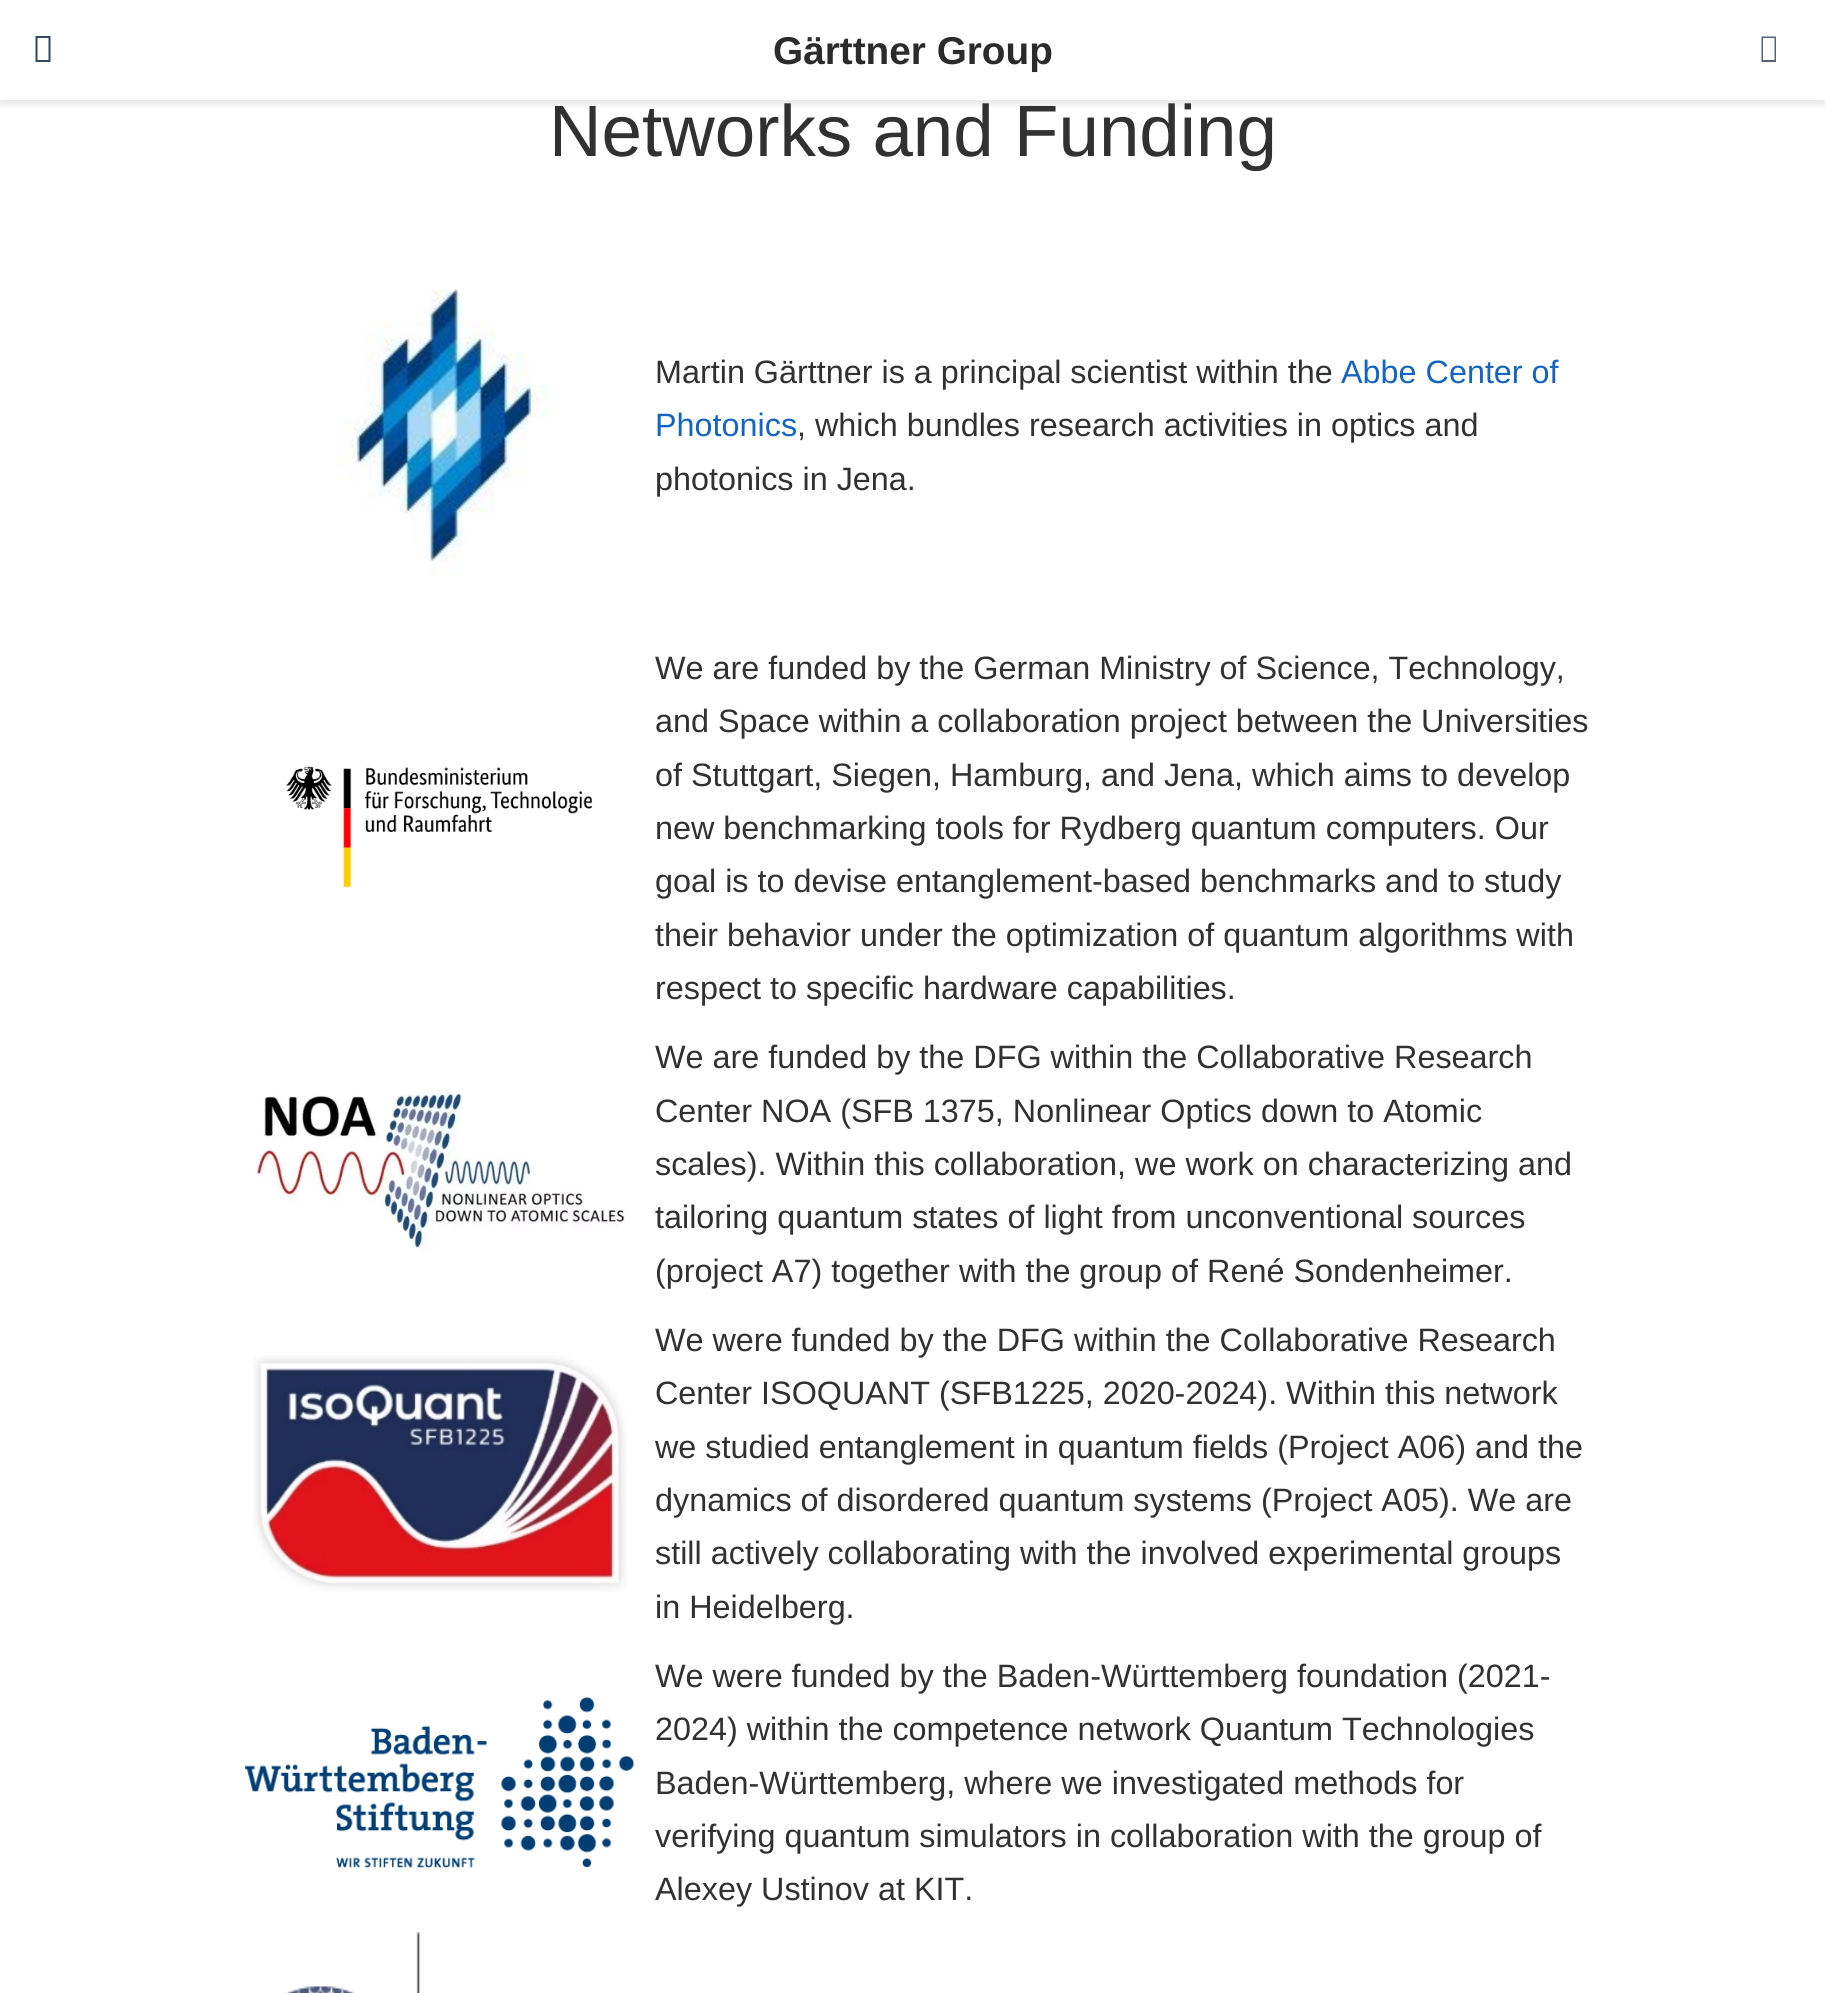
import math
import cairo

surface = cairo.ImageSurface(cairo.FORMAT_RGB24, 1825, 1993)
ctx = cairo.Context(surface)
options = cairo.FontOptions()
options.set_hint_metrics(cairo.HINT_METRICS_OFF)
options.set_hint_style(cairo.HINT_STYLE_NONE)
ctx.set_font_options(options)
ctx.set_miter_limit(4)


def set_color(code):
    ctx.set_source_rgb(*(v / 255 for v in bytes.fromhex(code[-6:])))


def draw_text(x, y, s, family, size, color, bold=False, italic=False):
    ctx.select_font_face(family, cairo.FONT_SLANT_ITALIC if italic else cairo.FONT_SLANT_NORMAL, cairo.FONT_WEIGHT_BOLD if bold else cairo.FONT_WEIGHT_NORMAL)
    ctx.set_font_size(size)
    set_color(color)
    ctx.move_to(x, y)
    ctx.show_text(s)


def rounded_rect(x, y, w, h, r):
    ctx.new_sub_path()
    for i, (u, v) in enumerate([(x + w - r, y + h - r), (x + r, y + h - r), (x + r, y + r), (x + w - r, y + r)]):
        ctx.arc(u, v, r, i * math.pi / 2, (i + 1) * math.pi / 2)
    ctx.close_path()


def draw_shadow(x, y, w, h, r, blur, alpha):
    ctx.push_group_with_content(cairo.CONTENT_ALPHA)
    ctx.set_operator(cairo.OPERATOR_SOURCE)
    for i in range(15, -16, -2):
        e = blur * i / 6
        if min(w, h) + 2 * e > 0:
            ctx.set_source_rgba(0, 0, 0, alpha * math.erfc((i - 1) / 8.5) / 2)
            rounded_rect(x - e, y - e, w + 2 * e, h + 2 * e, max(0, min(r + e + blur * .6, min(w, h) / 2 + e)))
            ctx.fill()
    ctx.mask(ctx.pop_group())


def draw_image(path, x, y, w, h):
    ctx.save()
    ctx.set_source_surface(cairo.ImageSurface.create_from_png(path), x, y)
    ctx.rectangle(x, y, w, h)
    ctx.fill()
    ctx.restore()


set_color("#ffffff")
ctx.paint()
ctx.save()
ctx.rectangle(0, 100, 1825, 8)
ctx.clip()
set_color("#000000")
draw_shadow(0, 4, 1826, 100, 0, 4, 0.11)
ctx.restore()
set_color("#34495e")
ctx.new_path()
ctx.move_to(35.5, 62)
ctx.line_to(35.5, 36)
ctx.line_to(50.5, 36)
ctx.line_to(50.5, 62)
ctx.close_path()
ctx.move_to(37.5, 60)
ctx.line_to(48.5, 60)
ctx.line_to(48.5, 38)
ctx.line_to(37.5, 38)
ctx.close_path()
ctx.fill()
draw_text(773, 64, "Gärttner Group", "Liberation Sans", 38.75, "#2b2b2b", bold=True)
set_color("#526476")
ctx.new_path()
ctx.move_to(1761.5, 62)
ctx.line_to(1761.5, 36.5)
ctx.line_to(1776, 36.5)
ctx.line_to(1776, 62)
ctx.close_path()
ctx.move_to(1763, 60)
ctx.line_to(1774.5, 60)
ctx.line_to(1774.5, 38)
ctx.line_to(1763, 38)
ctx.close_path()
ctx.fill()
draw_text(549, 156, "Networks and Funding", "Liberation Sans", 72.75, "#313131")
draw_image("assets/img1.png", 336, 289, 223, 287)
draw_text(655, 383, "Martin Gärttner is a principal scientist within the", "Liberation Sans", 32.35, "#313131")
draw_text(1341, 383, "Abbe Center of", "Liberation Sans", 32.35, "#1565c0")
draw_text(655, 436, "Photonics", "Liberation Sans", 32.35, "#1565c0")
draw_text(797, 436, ", which bundles research activities in optics and", "Liberation Sans", 32.35, "#313131")
draw_text(655, 490, "photonics in Jena.", "Liberation Sans", 32.35, "#313131")
draw_image("assets/img2.png", 286, 766, 307, 122)
draw_text(655, 679, "We are funded by the German Ministry of Science, Technology,", "Liberation Sans", 32.35, "#313131")
draw_text(655, 732, "and Space within a collaboration project between the Universities", "Liberation Sans", 32.35, "#313131")
draw_text(655, 786, "of Stuttgart, Siegen, Hamburg, and Jena, which aims to develop", "Liberation Sans", 32.35, "#313131")
draw_text(655, 839, "new benchmarking tools for Rydberg quantum computers. Our", "Liberation Sans", 32.35, "#313131")
draw_text(655, 892, "goal is to devise entanglement-based benchmarks and to study", "Liberation Sans", 32.35, "#313131")
draw_text(655, 946, "their behavior under the optimization of quantum algorithms with", "Liberation Sans", 32.35, "#313131")
draw_text(655, 999, "respect to specific hardware capabilities.", "Liberation Sans", 32.35, "#313131")
draw_image("assets/img3.png", 253, 1092, 372, 160)
draw_text(655, 1068, "We are funded by the DFG within the Collaborative Research", "Liberation Sans", 32.35, "#313131")
draw_text(655, 1122, "Center NOA (SFB 1375, Nonlinear Optics down to Atomic", "Liberation Sans", 32.35, "#313131")
draw_text(655, 1175, "scales). Within this collaboration, we work on characterizing and", "Liberation Sans", 32.35, "#313131")
draw_text(655, 1228, "tailoring quantum states of light from unconventional sources", "Liberation Sans", 32.35, "#313131")
draw_text(655, 1282, "(project A7) together with the group of René Sondenheimer.", "Liberation Sans", 32.35, "#313131")
draw_image("assets/img4.png", 253, 1355, 374, 237)
draw_text(655, 1351, "We were funded by the DFG within the Collaborative Research", "Liberation Sans", 32.35, "#313131")
draw_text(655, 1404, "Center ISOQUANT (SFB1225, 2020-2024). Within this network", "Liberation Sans", 32.35, "#313131")
draw_text(655, 1458, "we studied entanglement in quantum fields (Project A06) and the", "Liberation Sans", 32.35, "#313131")
draw_text(655, 1511, "dynamics of disordered quantum systems (Project A05). We are", "Liberation Sans", 32.35, "#313131")
draw_text(655, 1564, "still actively collaborating with the involved experimental groups", "Liberation Sans", 32.35, "#313131")
draw_text(655, 1618, "in Heidelberg.", "Liberation Sans", 32.35, "#313131")
draw_image("assets/img5.png", 245, 1697, 389, 171)
draw_text(655, 1687, "We were funded by the Baden-Württemberg foundation (2021-", "Liberation Sans", 32.35, "#313131")
draw_text(655, 1740, "2024) within the competence network Quantum Technologies", "Liberation Sans", 32.35, "#313131")
draw_text(655, 1794, "Baden-Württemberg, where we investigated methods for", "Liberation Sans", 32.35, "#313131")
draw_text(655, 1847, "verifying quantum simulators in collaboration with the group of", "Liberation Sans", 32.35, "#313131")
draw_text(655, 1900, "Alexey Ustinov at KIT.", "Liberation Sans", 32.35, "#313131")
draw_image("assets/img6.png", 286, 1932, 134, 61)
surface.write_to_png("output.png")
